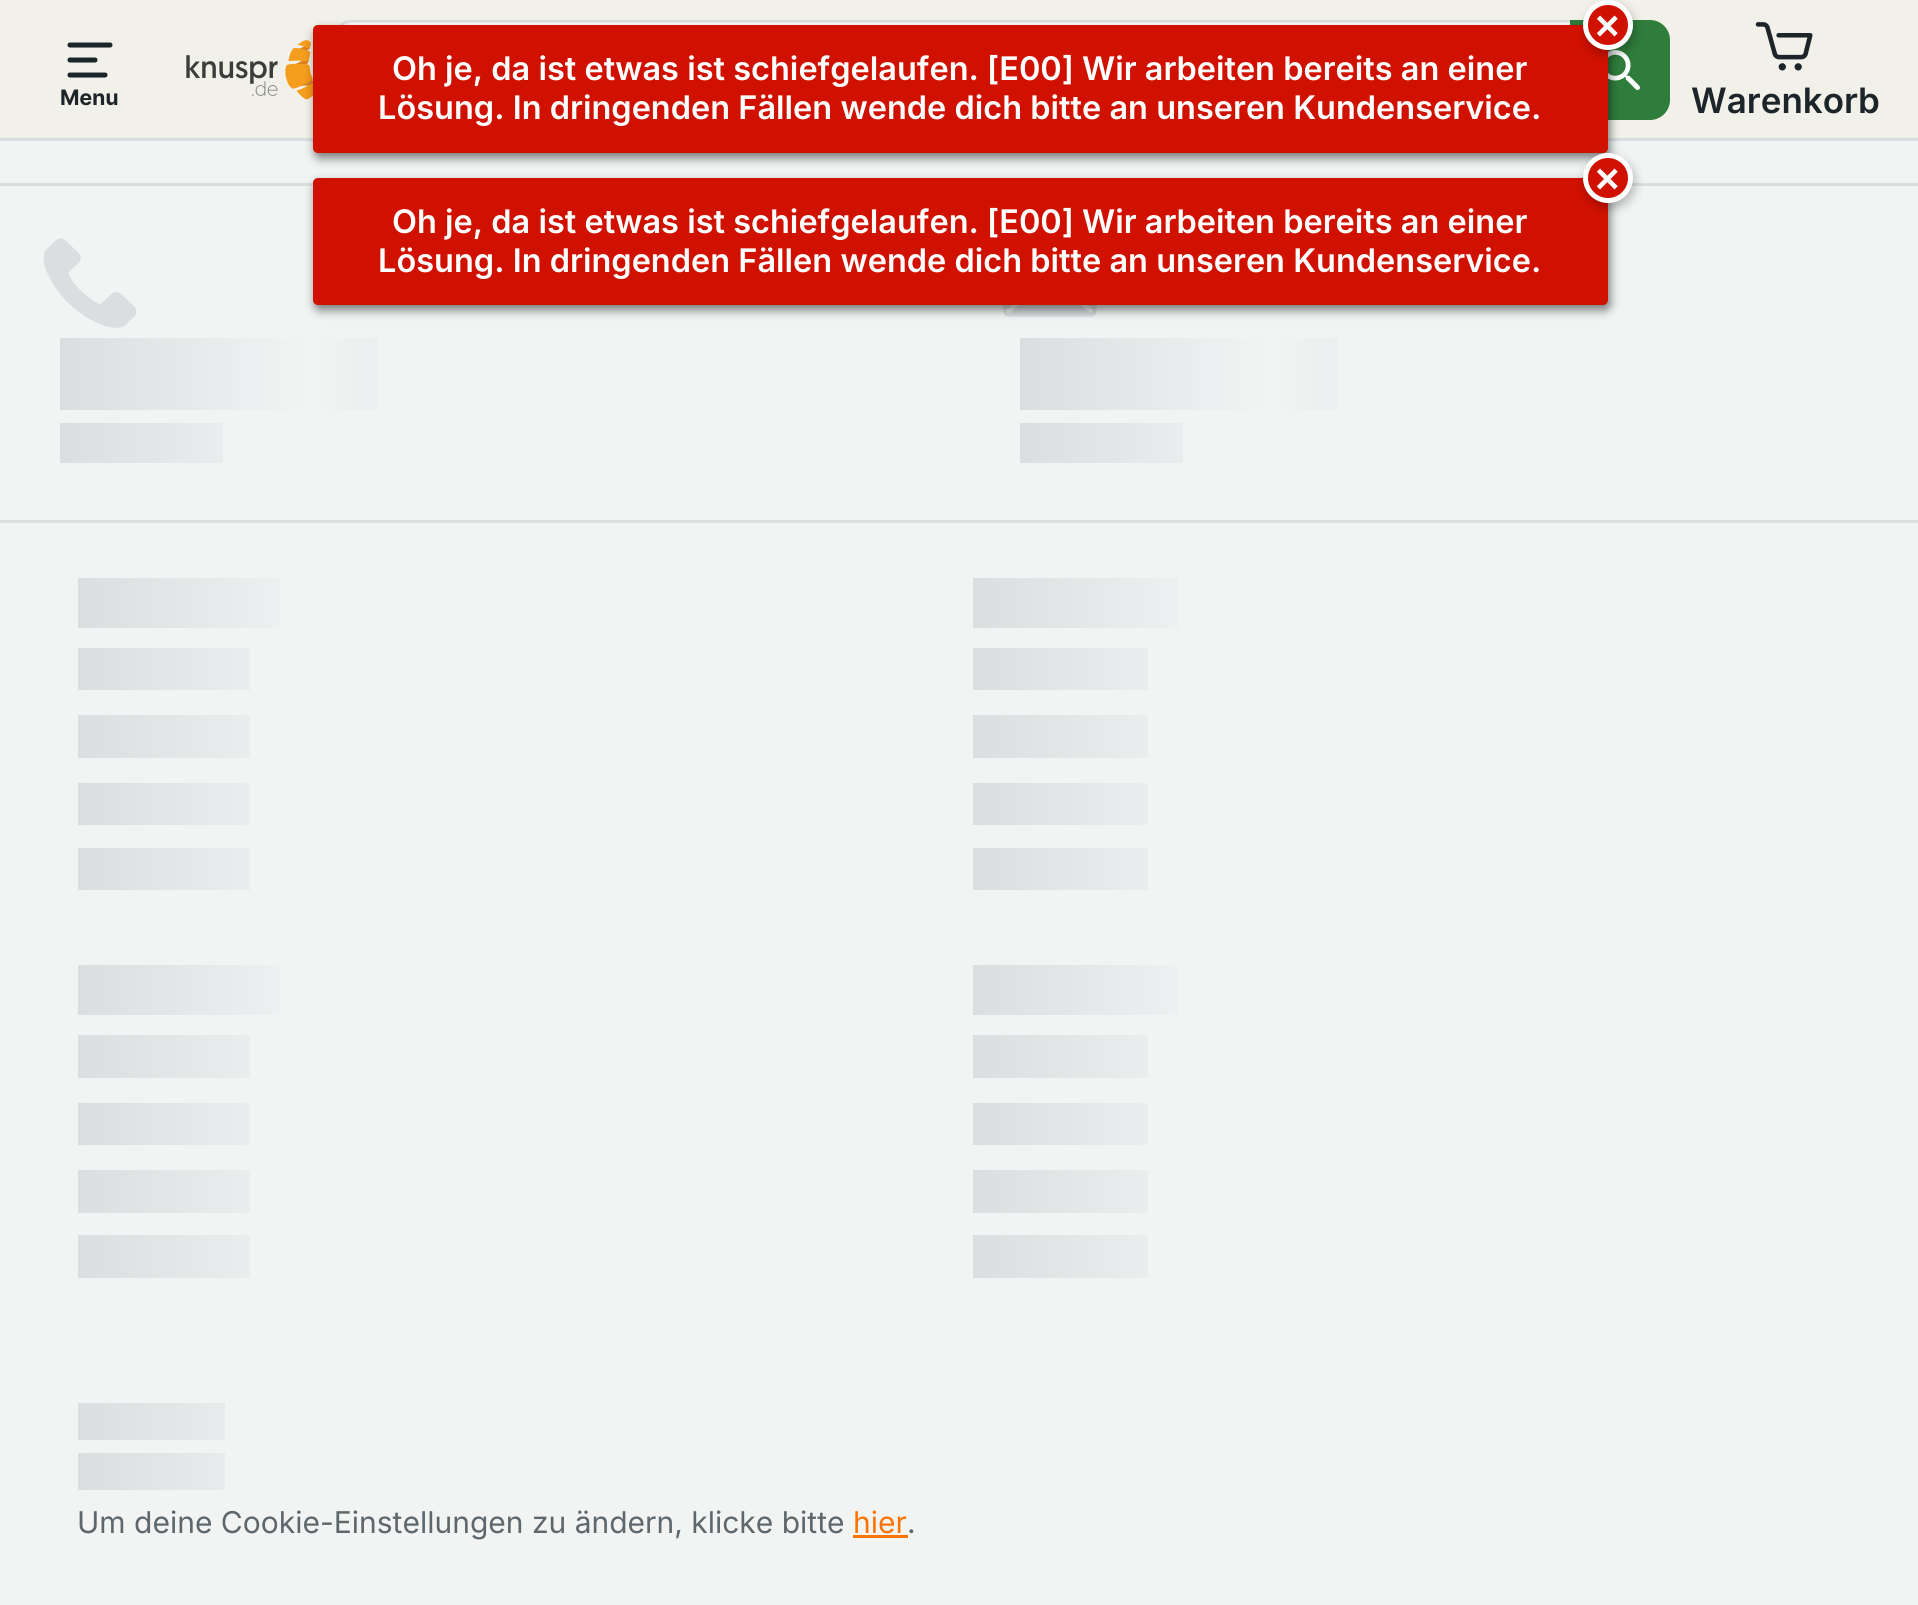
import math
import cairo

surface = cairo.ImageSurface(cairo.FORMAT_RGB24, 1918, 1605)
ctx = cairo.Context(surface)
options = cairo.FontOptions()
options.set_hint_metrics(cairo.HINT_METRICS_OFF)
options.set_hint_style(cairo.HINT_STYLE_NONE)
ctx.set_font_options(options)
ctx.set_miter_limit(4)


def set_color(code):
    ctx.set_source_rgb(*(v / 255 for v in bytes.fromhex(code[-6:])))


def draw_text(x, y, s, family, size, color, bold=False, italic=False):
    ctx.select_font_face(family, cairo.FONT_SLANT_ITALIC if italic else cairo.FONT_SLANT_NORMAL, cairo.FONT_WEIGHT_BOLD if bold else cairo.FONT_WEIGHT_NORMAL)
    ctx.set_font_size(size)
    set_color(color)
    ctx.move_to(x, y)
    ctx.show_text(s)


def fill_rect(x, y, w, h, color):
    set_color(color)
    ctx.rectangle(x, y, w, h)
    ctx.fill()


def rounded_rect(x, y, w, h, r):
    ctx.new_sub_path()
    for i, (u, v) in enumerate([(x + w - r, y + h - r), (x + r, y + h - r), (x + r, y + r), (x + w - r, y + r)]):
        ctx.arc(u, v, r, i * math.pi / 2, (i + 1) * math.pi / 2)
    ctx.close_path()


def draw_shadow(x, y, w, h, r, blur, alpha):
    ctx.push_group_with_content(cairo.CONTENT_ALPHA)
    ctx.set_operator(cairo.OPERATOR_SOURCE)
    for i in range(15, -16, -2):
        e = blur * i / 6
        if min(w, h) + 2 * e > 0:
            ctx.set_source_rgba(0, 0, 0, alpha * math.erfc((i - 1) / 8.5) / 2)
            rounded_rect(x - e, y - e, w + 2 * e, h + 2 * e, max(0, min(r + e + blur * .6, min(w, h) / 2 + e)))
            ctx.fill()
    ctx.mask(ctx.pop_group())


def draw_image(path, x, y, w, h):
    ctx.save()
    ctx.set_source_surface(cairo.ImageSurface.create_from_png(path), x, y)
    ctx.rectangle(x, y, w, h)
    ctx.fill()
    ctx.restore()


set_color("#f2f4f4")
ctx.paint()
fill_rect(0, 0, 1918, 138, "#f2f1e9")
fill_rect(0, 138, 1918, 3, "#dadee0")
draw_image("assets/img2.png", 186, 40, 127, 61)
set_color("#ffffff")
ctx.new_path()
ctx.move_to(353, 23)
ctx.line_to(1570, 23)
ctx.line_to(1570, 118)
ctx.line_to(353, 118)
ctx.curve_to(343, 118, 335, 110, 335, 100)
ctx.line_to(335, 41)
ctx.curve_to(335, 31, 343, 23, 353, 23)
ctx.close_path()
ctx.fill()
set_color("#dadee0")
ctx.set_fill_rule(cairo.FILL_RULE_EVEN_ODD)
ctx.new_path()
ctx.move_to(352, 20)
ctx.line_to(1570, 20)
ctx.line_to(1570, 120)
ctx.line_to(352, 120)
ctx.curve_to(341, 120, 332, 111, 332, 100)
ctx.line_to(332, 40)
ctx.curve_to(332, 29, 341, 20, 352, 20)
ctx.close_path()
ctx.move_to(352, 22)
ctx.line_to(1570, 22)
ctx.line_to(1570, 118)
ctx.line_to(352, 118)
ctx.curve_to(343, 118, 335, 110, 335, 100)
ctx.line_to(335, 40)
ctx.curve_to(335, 30, 343, 22, 352, 22)
ctx.close_path()
ctx.fill()
set_color("#2f7d3b")
ctx.new_path()
ctx.move_to(1570, 20)
ctx.line_to(1650, 20)
ctx.curve_to(1661, 20, 1670, 29, 1670, 40)
ctx.line_to(1670, 100)
ctx.curve_to(1670, 111, 1661, 120, 1650, 120)
ctx.line_to(1570, 120)
ctx.close_path()
ctx.fill()
draw_image("assets/img3.png", 1608, 50, 32, 40)
set_color("#000000")
draw_shadow(315, 30, 1295, 128, 5, 5, 0.51)
set_color("#d11100")
rounded_rect(313, 25, 1295, 128, 5)
ctx.fill()
set_color("#000000")
draw_shadow(1585, 5, 50, 50, 25, 5, 0.25)
set_color("#d11100")
ctx.arc(1608, 25, 22.5, 0, 2 * math.pi)
ctx.fill_preserve()
set_color("#ffffff")
ctx.set_line_width(5)
ctx.stroke()
draw_text(1595, 40, "×", "Liberation Sans", 42, "#ffffff", bold=True)
draw_text(392, 80, "Oh je, da ist etwas ist schiefgelaufen. [E00] Wir arbeiten bereits an einer", "Inter SemiBold", 32.5, "#ffffff")
draw_text(378, 119, "Lösung. In dringenden Fällen wende dich bitte an unseren Kundenservice.", "Inter SemiBold", 32.5, "#ffffff")
fill_rect(0, 183, 1918, 3, "#dadee0")
draw_image("assets/img6.png", 1003, 305, 94, 12)
set_color("#000000")
draw_shadow(315, 183, 1295, 127, 5, 5, 0.51)
set_color("#d11100")
rounded_rect(313, 178, 1295, 127, 5)
ctx.fill()
set_color("#000000")
draw_shadow(1585, 158, 50, 50, 25, 5, 0.25)
set_color("#d11100")
ctx.arc(1608, 178, 22.5, 0, 2 * math.pi)
ctx.fill_preserve()
set_color("#ffffff")
ctx.stroke()
draw_text(1595, 193, "×", "Liberation Sans", 42, "#ffffff", bold=True)
draw_text(392, 233, "Oh je, da ist etwas ist schiefgelaufen. [E00] Wir arbeiten bereits an einer", "Inter SemiBold", 32.5, "#ffffff")
draw_text(378, 272, "Lösung. In dringenden Fällen wende dich bitte an unseren Kundenservice.", "Inter SemiBold", 32.5, "#ffffff")
draw_image("assets/img1.png", 61, 42, 57, 64)
draw_image("assets/img4.png", 1755, 22, 58, 49)
draw_text(1691, 113, "Warenkorb", "Inter SemiBold", 35, "#1c2529")
fill_rect(0, 520, 1918, 3, "#dadee0")
draw_image("assets/img5.png", 43, 238, 94, 90)
gradient = cairo.LinearGradient(60, 374, 560, 374)
gradient.add_color_stop_rgba(0, 0.855, 0.871, 0.878, 1)
gradient.add_color_stop_rgba(0.5, 0.949, 0.957, 0.957, 1)
gradient.add_color_stop_rgba(1, 0.855, 0.871, 0.878, 1)
ctx.set_source(gradient)
ctx.rectangle(60, 338, 318, 72)
ctx.fill()
gradient = cairo.LinearGradient(60, 443, 560, 443)
gradient.add_color_stop_rgba(0, 0.855, 0.871, 0.878, 1)
gradient.add_color_stop_rgba(0.5, 0.949, 0.957, 0.957, 1)
gradient.add_color_stop_rgba(1, 0.855, 0.871, 0.878, 1)
ctx.set_source(gradient)
ctx.rectangle(60, 423, 163, 40)
ctx.fill()
gradient = cairo.LinearGradient(1020, 374, 1520, 374)
gradient.add_color_stop_rgba(0, 0.855, 0.871, 0.878, 1)
gradient.add_color_stop_rgba(0.5, 0.949, 0.957, 0.957, 1)
gradient.add_color_stop_rgba(1, 0.855, 0.871, 0.878, 1)
ctx.set_source(gradient)
ctx.rectangle(1020, 338, 318, 72)
ctx.fill()
gradient = cairo.LinearGradient(1020, 443, 1520, 443)
gradient.add_color_stop_rgba(0, 0.855, 0.871, 0.878, 1)
gradient.add_color_stop_rgba(0.5, 0.949, 0.957, 0.957, 1)
gradient.add_color_stop_rgba(1, 0.855, 0.871, 0.878, 1)
ctx.set_source(gradient)
ctx.rectangle(1020, 423, 163, 40)
ctx.fill()
gradient = cairo.LinearGradient(78, 603, 578, 603)
gradient.add_color_stop_rgba(0, 0.855, 0.871, 0.878, 1)
gradient.add_color_stop_rgba(0.5, 0.949, 0.957, 0.957, 1)
gradient.add_color_stop_rgba(1, 0.855, 0.871, 0.878, 1)
ctx.set_source(gradient)
ctx.rectangle(78, 578, 202, 50)
ctx.fill()
gradient = cairo.LinearGradient(78, 669, 578, 669)
gradient.add_color_stop_rgba(0, 0.855, 0.871, 0.878, 1)
gradient.add_color_stop_rgba(0.5, 0.949, 0.957, 0.957, 1)
gradient.add_color_stop_rgba(1, 0.855, 0.871, 0.878, 1)
ctx.set_source(gradient)
ctx.rectangle(78, 648, 172, 42)
ctx.fill()
gradient = cairo.LinearGradient(78, 736, 578, 736)
gradient.add_color_stop_rgba(0, 0.855, 0.871, 0.878, 1)
gradient.add_color_stop_rgba(0.5, 0.949, 0.957, 0.957, 1)
gradient.add_color_stop_rgba(1, 0.855, 0.871, 0.878, 1)
ctx.set_source(gradient)
ctx.rectangle(78, 715, 172, 43)
ctx.fill()
gradient = cairo.LinearGradient(78, 804, 578, 804)
gradient.add_color_stop_rgba(0, 0.855, 0.871, 0.878, 1)
gradient.add_color_stop_rgba(0.5, 0.949, 0.957, 0.957, 1)
gradient.add_color_stop_rgba(1, 0.855, 0.871, 0.878, 1)
ctx.set_source(gradient)
ctx.rectangle(78, 783, 172, 42)
ctx.fill()
gradient = cairo.LinearGradient(78, 869, 578, 869)
gradient.add_color_stop_rgba(0, 0.855, 0.871, 0.878, 1)
gradient.add_color_stop_rgba(0.5, 0.949, 0.957, 0.957, 1)
gradient.add_color_stop_rgba(1, 0.855, 0.871, 0.878, 1)
ctx.set_source(gradient)
ctx.rectangle(78, 848, 172, 42)
ctx.fill()
gradient = cairo.LinearGradient(973, 603, 1473, 603)
gradient.add_color_stop_rgba(0, 0.855, 0.871, 0.878, 1)
gradient.add_color_stop_rgba(0.5, 0.949, 0.957, 0.957, 1)
gradient.add_color_stop_rgba(1, 0.855, 0.871, 0.878, 1)
ctx.set_source(gradient)
ctx.rectangle(973, 578, 205, 50)
ctx.fill()
gradient = cairo.LinearGradient(973, 669, 1473, 669)
gradient.add_color_stop_rgba(0, 0.855, 0.871, 0.878, 1)
gradient.add_color_stop_rgba(0.5, 0.949, 0.957, 0.957, 1)
gradient.add_color_stop_rgba(1, 0.855, 0.871, 0.878, 1)
ctx.set_source(gradient)
ctx.rectangle(973, 648, 175, 42)
ctx.fill()
gradient = cairo.LinearGradient(973, 736, 1473, 736)
gradient.add_color_stop_rgba(0, 0.855, 0.871, 0.878, 1)
gradient.add_color_stop_rgba(0.5, 0.949, 0.957, 0.957, 1)
gradient.add_color_stop_rgba(1, 0.855, 0.871, 0.878, 1)
ctx.set_source(gradient)
ctx.rectangle(973, 715, 175, 43)
ctx.fill()
gradient = cairo.LinearGradient(973, 804, 1473, 804)
gradient.add_color_stop_rgba(0, 0.855, 0.871, 0.878, 1)
gradient.add_color_stop_rgba(0.5, 0.949, 0.957, 0.957, 1)
gradient.add_color_stop_rgba(1, 0.855, 0.871, 0.878, 1)
ctx.set_source(gradient)
ctx.rectangle(973, 783, 175, 42)
ctx.fill()
gradient = cairo.LinearGradient(973, 869, 1473, 869)
gradient.add_color_stop_rgba(0, 0.855, 0.871, 0.878, 1)
gradient.add_color_stop_rgba(0.5, 0.949, 0.957, 0.957, 1)
gradient.add_color_stop_rgba(1, 0.855, 0.871, 0.878, 1)
ctx.set_source(gradient)
ctx.rectangle(973, 848, 175, 42)
ctx.fill()
gradient = cairo.LinearGradient(78, 990, 578, 990)
gradient.add_color_stop_rgba(0, 0.855, 0.871, 0.878, 1)
gradient.add_color_stop_rgba(0.5, 0.949, 0.957, 0.957, 1)
gradient.add_color_stop_rgba(1, 0.855, 0.871, 0.878, 1)
ctx.set_source(gradient)
ctx.rectangle(78, 965, 202, 50)
ctx.fill()
gradient = cairo.LinearGradient(78, 1056, 578, 1056)
gradient.add_color_stop_rgba(0, 0.855, 0.871, 0.878, 1)
gradient.add_color_stop_rgba(0.5, 0.949, 0.957, 0.957, 1)
gradient.add_color_stop_rgba(1, 0.855, 0.871, 0.878, 1)
ctx.set_source(gradient)
ctx.rectangle(78, 1035, 172, 43)
ctx.fill()
gradient = cairo.LinearGradient(78, 1124, 578, 1124)
gradient.add_color_stop_rgba(0, 0.855, 0.871, 0.878, 1)
gradient.add_color_stop_rgba(0.5, 0.949, 0.957, 0.957, 1)
gradient.add_color_stop_rgba(1, 0.855, 0.871, 0.878, 1)
ctx.set_source(gradient)
ctx.rectangle(78, 1103, 172, 42)
ctx.fill()
gradient = cairo.LinearGradient(78, 1191, 578, 1191)
gradient.add_color_stop_rgba(0, 0.855, 0.871, 0.878, 1)
gradient.add_color_stop_rgba(0.5, 0.949, 0.957, 0.957, 1)
gradient.add_color_stop_rgba(1, 0.855, 0.871, 0.878, 1)
ctx.set_source(gradient)
ctx.rectangle(78, 1170, 172, 43)
ctx.fill()
gradient = cairo.LinearGradient(78, 1256, 578, 1256)
gradient.add_color_stop_rgba(0, 0.855, 0.871, 0.878, 1)
gradient.add_color_stop_rgba(0.5, 0.949, 0.957, 0.957, 1)
gradient.add_color_stop_rgba(1, 0.855, 0.871, 0.878, 1)
ctx.set_source(gradient)
ctx.rectangle(78, 1235, 172, 43)
ctx.fill()
gradient = cairo.LinearGradient(973, 990, 1473, 990)
gradient.add_color_stop_rgba(0, 0.855, 0.871, 0.878, 1)
gradient.add_color_stop_rgba(0.5, 0.949, 0.957, 0.957, 1)
gradient.add_color_stop_rgba(1, 0.855, 0.871, 0.878, 1)
ctx.set_source(gradient)
ctx.rectangle(973, 965, 205, 50)
ctx.fill()
gradient = cairo.LinearGradient(973, 1056, 1473, 1056)
gradient.add_color_stop_rgba(0, 0.855, 0.871, 0.878, 1)
gradient.add_color_stop_rgba(0.5, 0.949, 0.957, 0.957, 1)
gradient.add_color_stop_rgba(1, 0.855, 0.871, 0.878, 1)
ctx.set_source(gradient)
ctx.rectangle(973, 1035, 175, 43)
ctx.fill()
gradient = cairo.LinearGradient(973, 1124, 1473, 1124)
gradient.add_color_stop_rgba(0, 0.855, 0.871, 0.878, 1)
gradient.add_color_stop_rgba(0.5, 0.949, 0.957, 0.957, 1)
gradient.add_color_stop_rgba(1, 0.855, 0.871, 0.878, 1)
ctx.set_source(gradient)
ctx.rectangle(973, 1103, 175, 42)
ctx.fill()
gradient = cairo.LinearGradient(973, 1191, 1473, 1191)
gradient.add_color_stop_rgba(0, 0.855, 0.871, 0.878, 1)
gradient.add_color_stop_rgba(0.5, 0.949, 0.957, 0.957, 1)
gradient.add_color_stop_rgba(1, 0.855, 0.871, 0.878, 1)
ctx.set_source(gradient)
ctx.rectangle(973, 1170, 175, 43)
ctx.fill()
gradient = cairo.LinearGradient(973, 1256, 1473, 1256)
gradient.add_color_stop_rgba(0, 0.855, 0.871, 0.878, 1)
gradient.add_color_stop_rgba(0.5, 0.949, 0.957, 0.957, 1)
gradient.add_color_stop_rgba(1, 0.855, 0.871, 0.878, 1)
ctx.set_source(gradient)
ctx.rectangle(973, 1235, 175, 43)
ctx.fill()
gradient = cairo.LinearGradient(78, 1421, 578, 1421)
gradient.add_color_stop_rgba(0, 0.855, 0.871, 0.878, 1)
gradient.add_color_stop_rgba(0.5, 0.949, 0.957, 0.957, 1)
gradient.add_color_stop_rgba(1, 0.855, 0.871, 0.878, 1)
ctx.set_source(gradient)
ctx.rectangle(78, 1403, 147, 37)
ctx.fill()
gradient = cairo.LinearGradient(78, 1471, 578, 1471)
gradient.add_color_stop_rgba(0, 0.855, 0.871, 0.878, 1)
gradient.add_color_stop_rgba(0.5, 0.949, 0.957, 0.957, 1)
gradient.add_color_stop_rgba(1, 0.855, 0.871, 0.878, 1)
ctx.set_source(gradient)
ctx.rectangle(78, 1453, 147, 37)
ctx.fill()
draw_text(77, 1533, "Um deine Cookie-Einstellungen zu ändern, klicke bitte", "Inter", 30, "#5d676c")
draw_text(853, 1533, "hier", "Inter", 30, "#ff7400")
fill_rect(853, 1535, 55, 3, "#ff7400")
draw_text(907, 1533, ".", "Inter", 30, "#5d676c")
surface.write_to_png("output.png")
